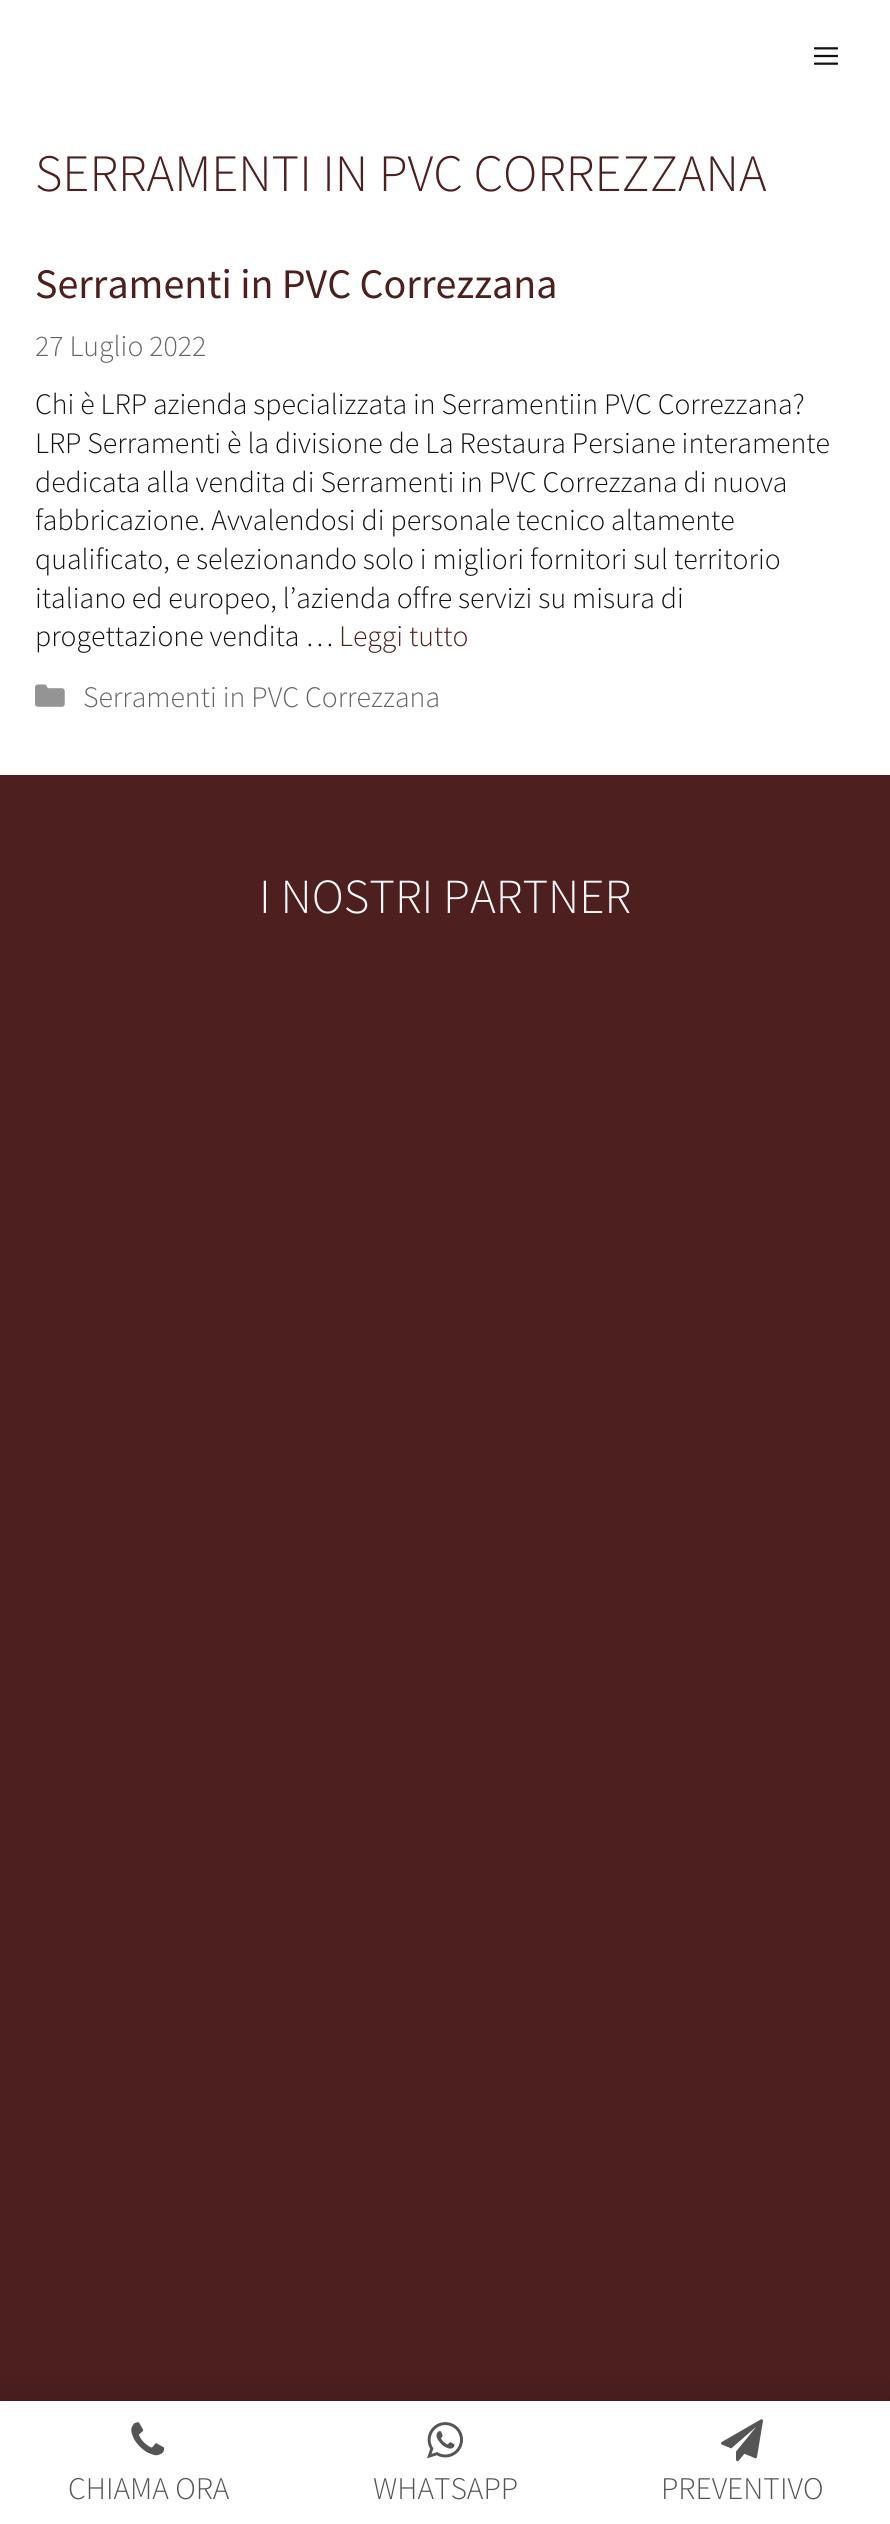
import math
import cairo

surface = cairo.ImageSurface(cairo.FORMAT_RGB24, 890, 2524)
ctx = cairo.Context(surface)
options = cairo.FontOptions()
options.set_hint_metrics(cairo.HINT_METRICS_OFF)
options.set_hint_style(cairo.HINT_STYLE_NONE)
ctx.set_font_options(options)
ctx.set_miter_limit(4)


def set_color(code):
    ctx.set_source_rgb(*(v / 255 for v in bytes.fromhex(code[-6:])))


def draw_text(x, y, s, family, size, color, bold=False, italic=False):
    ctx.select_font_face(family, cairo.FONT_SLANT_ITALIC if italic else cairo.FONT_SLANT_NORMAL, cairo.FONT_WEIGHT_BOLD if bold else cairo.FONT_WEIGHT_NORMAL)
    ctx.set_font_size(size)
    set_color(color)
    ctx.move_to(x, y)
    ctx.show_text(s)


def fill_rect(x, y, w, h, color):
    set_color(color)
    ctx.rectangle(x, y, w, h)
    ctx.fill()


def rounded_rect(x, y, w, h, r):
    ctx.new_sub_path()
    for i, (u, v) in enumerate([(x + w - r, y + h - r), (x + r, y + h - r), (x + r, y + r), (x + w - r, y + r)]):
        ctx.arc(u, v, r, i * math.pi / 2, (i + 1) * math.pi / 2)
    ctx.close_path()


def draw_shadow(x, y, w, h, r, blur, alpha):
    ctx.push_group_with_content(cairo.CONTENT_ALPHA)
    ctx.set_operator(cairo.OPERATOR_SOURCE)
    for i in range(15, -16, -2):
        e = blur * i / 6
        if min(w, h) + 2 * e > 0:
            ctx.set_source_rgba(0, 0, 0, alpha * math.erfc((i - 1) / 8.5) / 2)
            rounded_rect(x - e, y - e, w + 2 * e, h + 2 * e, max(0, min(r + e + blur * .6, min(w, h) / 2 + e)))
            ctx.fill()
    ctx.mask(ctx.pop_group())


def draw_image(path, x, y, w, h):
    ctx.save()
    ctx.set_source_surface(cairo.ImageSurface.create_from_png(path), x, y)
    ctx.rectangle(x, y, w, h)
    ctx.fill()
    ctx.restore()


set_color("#ffffff")
ctx.paint()
draw_image("assets/img1.png", 814, 47, 24, 18)
draw_text(35, 191, "SERRAMENTI IN PVC CORREZZANA", "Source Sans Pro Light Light", 52.5, "#4d1f1f")
draw_text(35, 298, "Serramenti in PVC Correzzana", "Source Sans Pro", 42, "#4d1f1f")
draw_text(35, 356, "27 Luglio 2022", "Source Sans Pro Light Light", 29.75, "#666666")
draw_text(35, 414, "Chi è LRP azienda specializzata in Serramentiin PVC Correzzana?", "Source Sans Pro Light Light", 29.75, "#121212")
draw_text(35, 453, "LRP Serramenti è la divisione de La Restaura Persiane interamente", "Source Sans Pro Light Light", 29.75, "#121212")
draw_text(35, 492, "dedicata alla vendita di Serramenti in PVC Correzzana di nuova", "Source Sans Pro Light Light", 29.75, "#121212")
draw_text(35, 530, "fabbricazione. Avvalendosi di personale tecnico altamente", "Source Sans Pro Light Light", 29.75, "#121212")
draw_text(35, 569, "qualificato, e selezionando solo i migliori fornitori sul territorio", "Source Sans Pro Light Light", 29.75, "#121212")
draw_text(35, 608, "italiano ed europeo, l’azienda offre servizi su misura di", "Source Sans Pro Light Light", 29.75, "#121212")
draw_text(35, 646, "progettazione vendita …", "Source Sans Pro Light Light", 29.75, "#121212")
draw_text(339, 646, "Leggi tutto", "Source Sans Pro Light Light", 29.75, "#4d1f1f")
draw_image("assets/img2.png", 35, 684, 30, 23)
draw_text(83, 707, "Serramenti in PVC Correzzana", "Source Sans Pro Light Light", 29.75, "#666666")
fill_rect(0, 775, 890, 1626, "#4d1f1f")
draw_text(259, 913, "I NOSTRI PARTNER", "Source Sans Pro Light Light", 49, "#f7f8f9")
set_color("#000000")
draw_shadow(0, 2392, 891, 125, 0, 9, 0.1)
fill_rect(0, 2401, 890, 123, "#ffffff")
draw_image("assets/img3.png", 131, 2422, 34, 34)
draw_text(68, 2499, "CHIAMA ORA", "Source Sans Pro Light Light", 31.5, "#555555")
draw_image("assets/img4.png", 427, 2422, 36, 37)
draw_text(373, 2499, "WHATSAPP", "Source Sans Pro Light Light", 31.5, "#555555")
draw_image("assets/img5.png", 721, 2419, 42, 43)
draw_text(661, 2499, "PREVENTIVO", "Source Sans Pro Light Light", 31.5, "#555555")
surface.write_to_png("output.png")
